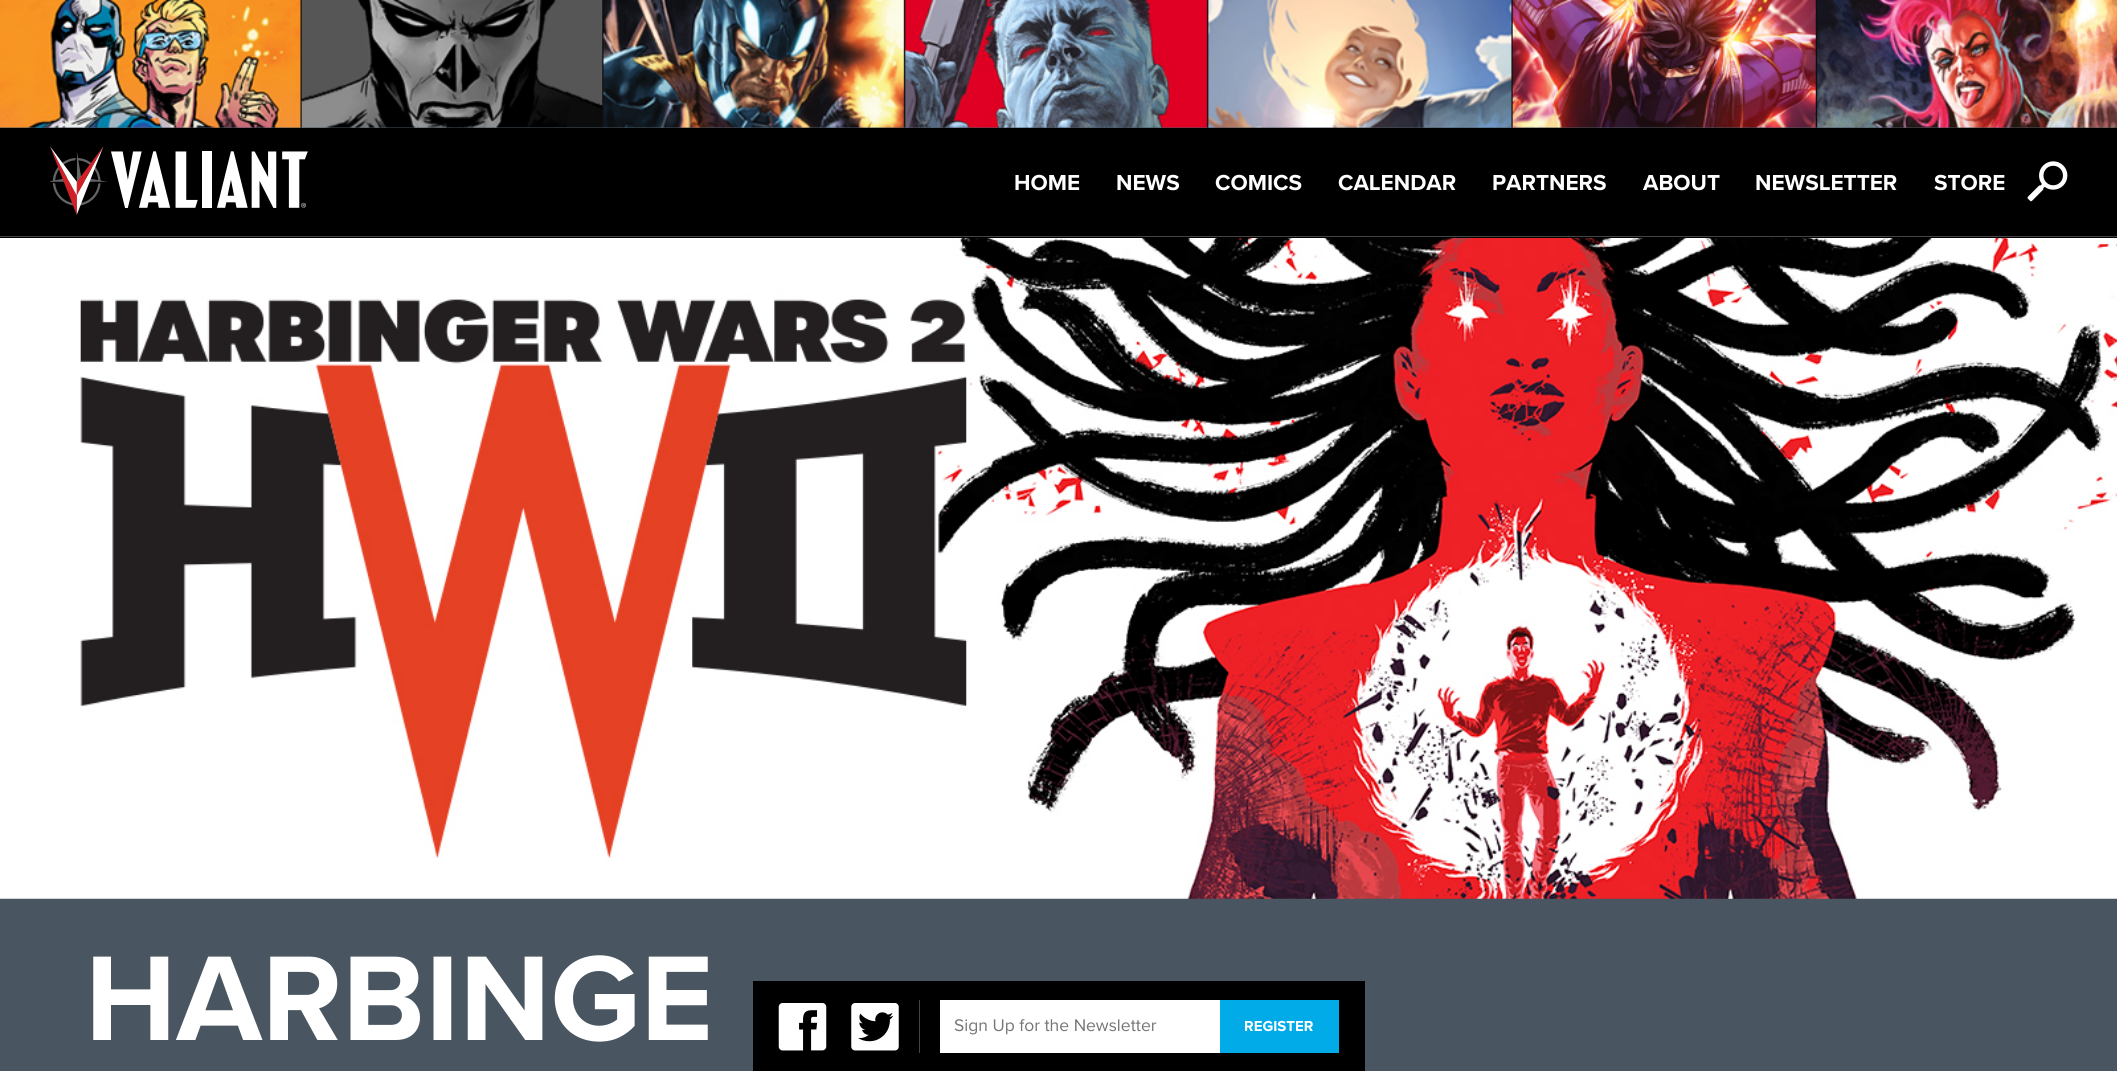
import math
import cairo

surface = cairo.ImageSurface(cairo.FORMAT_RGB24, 2117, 1071)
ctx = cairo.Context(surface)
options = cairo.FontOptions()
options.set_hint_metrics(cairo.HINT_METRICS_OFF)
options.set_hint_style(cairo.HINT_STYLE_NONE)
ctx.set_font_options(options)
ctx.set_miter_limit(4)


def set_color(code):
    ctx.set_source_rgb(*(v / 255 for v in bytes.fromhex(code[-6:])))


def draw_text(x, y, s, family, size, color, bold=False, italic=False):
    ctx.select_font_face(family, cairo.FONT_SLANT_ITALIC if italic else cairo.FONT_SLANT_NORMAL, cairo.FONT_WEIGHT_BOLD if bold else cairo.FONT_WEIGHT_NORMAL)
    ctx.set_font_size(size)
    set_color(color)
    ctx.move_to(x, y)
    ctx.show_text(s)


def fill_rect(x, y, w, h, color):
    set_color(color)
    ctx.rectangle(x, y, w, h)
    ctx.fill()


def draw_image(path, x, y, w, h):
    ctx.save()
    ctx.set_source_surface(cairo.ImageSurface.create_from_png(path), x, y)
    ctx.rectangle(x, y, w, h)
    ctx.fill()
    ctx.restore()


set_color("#495661")
ctx.paint()
draw_image("assets/img1.png", 0, 0, 2117, 128)
fill_rect(0, 128, 2117, 110, "#000000")
fill_rect(0, 236, 2117, 1, "#444444")
draw_image("assets/img2.png", 50, 146, 258, 69)
draw_text(1014, 190, "HOME", "Proxima Nova", 22.5, "#ffffff", bold=True)
draw_text(1116, 190, "NEWS", "Proxima Nova", 22.5, "#ffffff", bold=True)
draw_text(1215, 190, "COMICS", "Proxima Nova", 22.5, "#ffffff", bold=True)
draw_text(1338, 190, "CALENDAR", "Proxima Nova", 22.5, "#ffffff", bold=True)
draw_text(1492, 190, "PARTNERS", "Proxima Nova", 22.5, "#ffffff", bold=True)
draw_text(1643, 190, "ABOUT", "Proxima Nova", 22.5, "#ffffff", bold=True)
draw_text(1755, 190, "NEWSLETTER", "Proxima Nova", 22.5, "#ffffff", bold=True)
draw_text(1934, 190, "STORE", "Proxima Nova", 22.5, "#ffffff", bold=True)
draw_image("assets/img3.png", 2027, 161, 41, 41)
draw_image("assets/img4.png", 0, 238, 2117, 661)
draw_text(85, 1040, "HARBINGE", "Proxima Nova", 125, "#ffffff", bold=True)
fill_rect(753, 981, 612, 90, "#000000")
draw_image("assets/img5.png", 778, 1003, 49, 48)
draw_image("assets/img6.png", 851, 1003, 48, 48)
fill_rect(919, 1000, 1, 53, "#444444")
fill_rect(940, 1000, 280, 53, "#ffffff")
draw_text(954, 1031, "Sign Up for the Newsletter", "Proxima Nova", 17.5, "#757575")
fill_rect(1220, 1000, 119, 53, "#00abe8")
draw_text(1244, 1031, "REGISTER", "Proxima Nova", 15, "#ffffff", bold=True)
surface.write_to_png("output.png")
